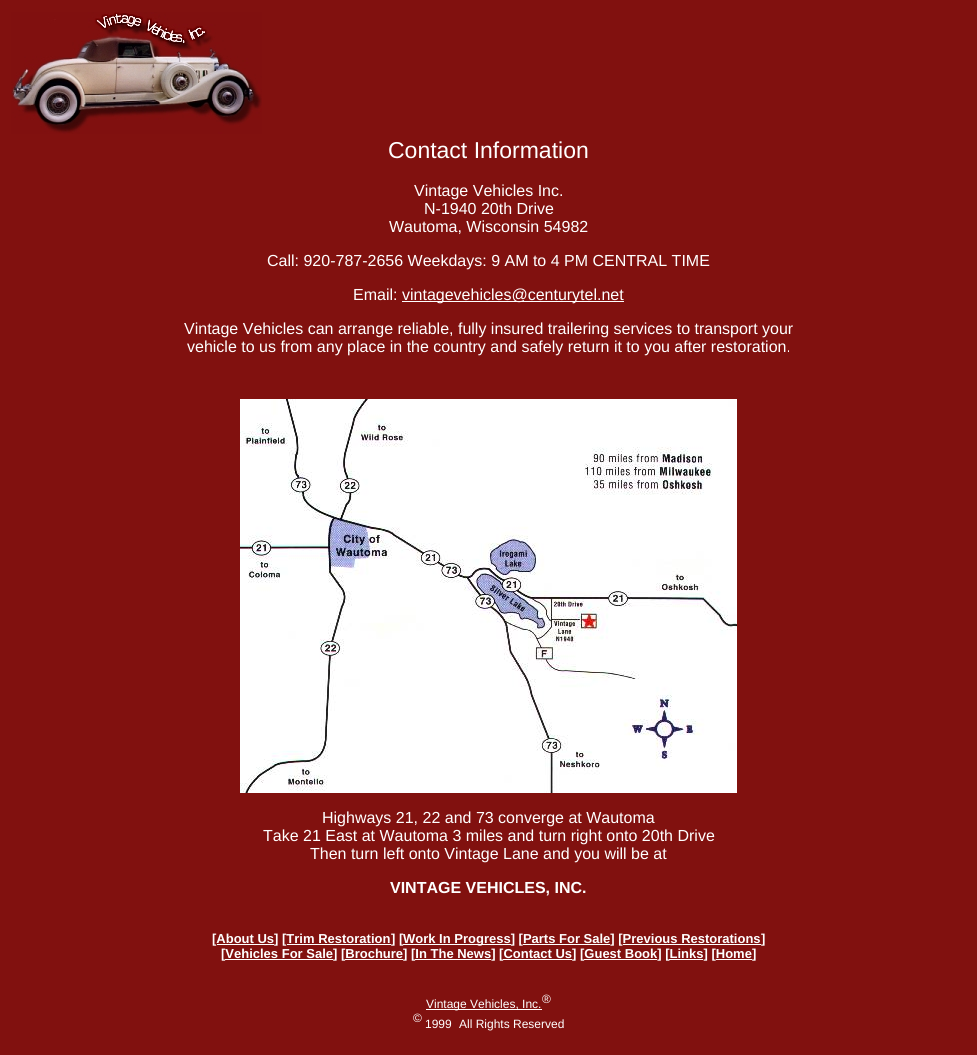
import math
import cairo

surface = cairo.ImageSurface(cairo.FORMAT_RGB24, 977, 1055)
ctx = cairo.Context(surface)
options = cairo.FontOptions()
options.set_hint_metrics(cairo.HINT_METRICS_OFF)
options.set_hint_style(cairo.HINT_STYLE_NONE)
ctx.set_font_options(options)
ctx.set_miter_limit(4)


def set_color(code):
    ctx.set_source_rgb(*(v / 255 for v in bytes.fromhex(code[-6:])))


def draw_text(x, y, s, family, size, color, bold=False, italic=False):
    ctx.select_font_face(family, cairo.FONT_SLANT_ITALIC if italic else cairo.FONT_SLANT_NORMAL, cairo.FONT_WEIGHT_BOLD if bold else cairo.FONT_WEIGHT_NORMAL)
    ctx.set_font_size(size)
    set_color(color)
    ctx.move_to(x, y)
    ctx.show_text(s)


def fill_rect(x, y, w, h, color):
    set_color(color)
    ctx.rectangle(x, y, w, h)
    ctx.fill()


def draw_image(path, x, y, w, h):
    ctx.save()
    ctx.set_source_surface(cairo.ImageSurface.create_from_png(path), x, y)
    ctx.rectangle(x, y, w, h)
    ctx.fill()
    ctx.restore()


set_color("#81110f")
ctx.paint()
draw_image("assets/img1.png", 11, 12, 251, 122)
draw_text(388, 158, "Contact Information", "Liberation Sans", 23, "#ffffff")
draw_text(414, 196, "Vintage Vehicles Inc.", "Liberation Sans", 16, "#ffffff")
draw_text(424, 214, "N-1940 20th Drive", "Liberation Sans", 16, "#ffffff")
draw_text(389, 232, "Wautoma, Wisconsin 54982", "Liberation Sans", 16, "#ffffff")
draw_text(267, 266, "Call: 920-787-2656 Weekdays: 9 AM to 4 PM CENTRAL TIME", "Liberation Sans", 16, "#ffffff")
draw_text(353, 300, "Email:", "Liberation Sans", 16, "#ffffff")
fill_rect(402, 301, 222, 1, "#ffffff")
draw_text(402, 300, "vintagevehicles@centurytel.net", "Liberation Sans", 16, "#ffffff")
draw_text(184, 334, "Vintage Vehicles can arrange reliable, fully insured trailering services to transport your", "Liberation Sans", 16, "#ffffff")
draw_text(187, 352, "vehicle to us from any place in the country and safely return it to you after restoration.", "Liberation Sans", 16, "#ffffff")
draw_image("assets/img2.png", 240, 399, 497, 394)
draw_text(322, 823, "Highways 21, 22 and 73 converge at Wautoma", "Liberation Sans", 16, "#ffffff")
draw_text(263, 841, "Take 21 East at Wautoma 3 miles and turn right onto 20th Drive", "Liberation Sans", 16, "#ffffff")
draw_text(310, 859, "Then turn left onto Vintage Lane and you will be at", "Liberation Sans", 16, "#ffffff")
draw_text(390, 893, "VINTAGE VEHICLES, INC.", "Liberation Sans", 16, "#ffffff", bold=True)
draw_text(212, 943, "[About Us] [Trim Restoration", "Liberation Sans", 13, "#ffffff", bold=True)
fill_rect(217, 944, 57, 1, "#ffffff")
fill_rect(287, 944, 104, 1, "#ffffff")
draw_text(391, 943, "] [", "Liberation Sans", 13, "#ffffff", bold=True)
fill_rect(403, 944, 108, 1, "#ffffff")
draw_text(403, 943, "Work In Progress] [Parts For Sale] [Previous Restorations", "Liberation Sans", 13, "#ffffff", bold=True)
fill_rect(523, 944, 87, 1, "#ffffff")
fill_rect(623, 944, 138, 1, "#ffffff")
draw_text(761, 943, "]", "Liberation Sans", 13, "#ffffff", bold=True)
draw_text(221, 958, "[Vehicles For Sale", "Liberation Sans", 13, "#ffffff", bold=True)
fill_rect(225, 959, 108, 1, "#ffffff")
draw_text(333, 958, "] [Brochure] [In The News] [Contact Us] [Guest Book] [Links] [Home]", "Liberation Sans", 13, "#ffffff", bold=True)
fill_rect(345, 959, 58, 1, "#ffffff")
fill_rect(415, 959, 76, 1, "#ffffff")
fill_rect(503, 959, 69, 1, "#ffffff")
fill_rect(584, 959, 73, 1, "#ffffff")
fill_rect(669, 959, 34, 1, "#ffffff")
fill_rect(716, 959, 36, 1, "#ffffff")
fill_rect(426, 1009, 116, 1, "#ffffff")
draw_text(426, 1008, "Vintage Vehicles, Inc.", "Liberation Sans", 12, "#ffffff")
draw_text(542, 1003, "®", "Liberation Sans", 12, "#ffffff")
draw_text(413, 1022, "©", "Liberation Sans", 12, "#ffffff")
draw_text(425, 1028, "1999", "Liberation Sans", 12, "#ffffff")
draw_text(459, 1028, "All Rights Reserved", "Liberation Sans", 12, "#ffffff")
surface.write_to_png("output.png")
